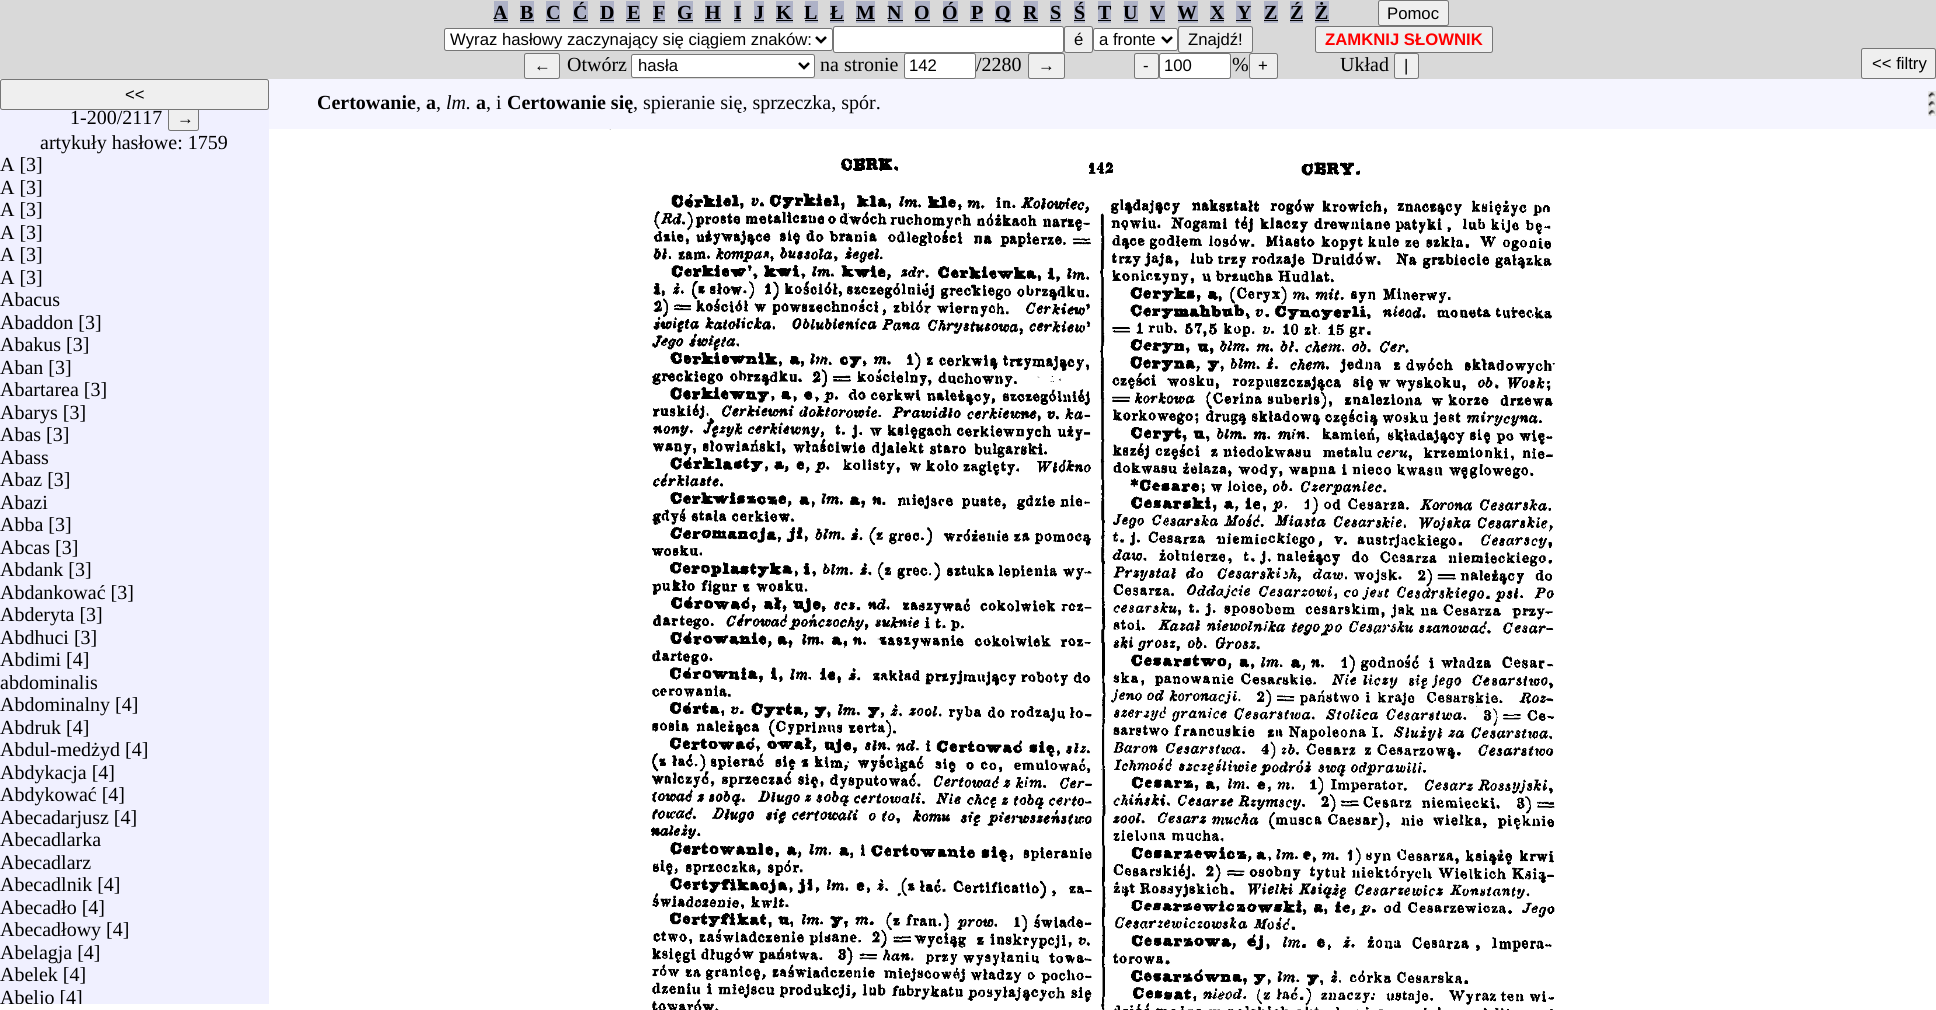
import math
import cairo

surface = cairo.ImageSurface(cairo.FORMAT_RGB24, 1936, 1010)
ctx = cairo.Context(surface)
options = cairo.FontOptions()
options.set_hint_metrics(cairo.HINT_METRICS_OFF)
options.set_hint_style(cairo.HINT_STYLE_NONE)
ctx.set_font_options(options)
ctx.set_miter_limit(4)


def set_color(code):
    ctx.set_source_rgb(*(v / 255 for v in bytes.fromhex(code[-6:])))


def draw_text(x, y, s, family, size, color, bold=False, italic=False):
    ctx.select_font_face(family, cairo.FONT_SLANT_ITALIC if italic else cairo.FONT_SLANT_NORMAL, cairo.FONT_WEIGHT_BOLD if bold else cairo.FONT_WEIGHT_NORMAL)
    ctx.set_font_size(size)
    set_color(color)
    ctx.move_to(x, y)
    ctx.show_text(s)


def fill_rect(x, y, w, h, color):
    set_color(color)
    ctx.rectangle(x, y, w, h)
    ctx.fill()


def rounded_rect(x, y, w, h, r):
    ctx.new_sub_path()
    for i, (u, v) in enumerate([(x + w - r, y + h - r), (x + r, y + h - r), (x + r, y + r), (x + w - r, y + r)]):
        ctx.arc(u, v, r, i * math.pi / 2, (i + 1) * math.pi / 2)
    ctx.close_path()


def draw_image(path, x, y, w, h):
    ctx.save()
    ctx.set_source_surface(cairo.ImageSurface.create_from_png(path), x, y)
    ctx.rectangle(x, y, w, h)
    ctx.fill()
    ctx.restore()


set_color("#ffffff")
ctx.paint()
fill_rect(0, 0, 1936, 79, "#d9d9d9")
fill_rect(494, 1, 14, 22, "#aeb2c7")
draw_text(493, 19, "A", "Liberation Serif", 20, "#000000", bold=True)
fill_rect(494, 20, 14, 1, "#000000")
fill_rect(520, 1, 14, 22, "#aeb2c7")
draw_text(520, 19, "B", "Liberation Serif", 20, "#000000", bold=True)
fill_rect(520, 20, 14, 1, "#000000")
fill_rect(546, 1, 14, 22, "#aeb2c7")
draw_text(546, 19, "C", "Liberation Serif", 20, "#000000", bold=True)
fill_rect(546, 20, 14, 1, "#000000")
fill_rect(573, 1, 15, 22, "#aeb2c7")
draw_text(573, 19, "Ć", "Liberation Serif", 20, "#000000", bold=True)
fill_rect(573, 20, 15, 1, "#000000")
fill_rect(600, 1, 14, 22, "#aeb2c7")
draw_text(600, 19, "D", "Liberation Serif", 20, "#000000", bold=True)
fill_rect(600, 20, 14, 1, "#000000")
fill_rect(626, 1, 14, 22, "#aeb2c7")
draw_text(627, 19, "E", "Liberation Serif", 20, "#000000", bold=True)
fill_rect(626, 20, 14, 1, "#000000")
fill_rect(653, 1, 12, 22, "#aeb2c7")
draw_text(653, 19, "F", "Liberation Serif", 20, "#000000", bold=True)
fill_rect(653, 20, 12, 1, "#000000")
fill_rect(678, 1, 15, 22, "#aeb2c7")
draw_text(677, 19, "G", "Liberation Serif", 20, "#000000", bold=True)
fill_rect(678, 20, 15, 1, "#000000")
fill_rect(705, 1, 16, 22, "#aeb2c7")
draw_text(705, 19, "H", "Liberation Serif", 20, "#000000", bold=True)
fill_rect(705, 20, 16, 1, "#000000")
fill_rect(734, 1, 7, 22, "#aeb2c7")
draw_text(734, 19, "I", "Liberation Serif", 20, "#000000", bold=True)
fill_rect(734, 20, 7, 1, "#000000")
fill_rect(754, 1, 10, 22, "#aeb2c7")
draw_text(754, 19, "J", "Liberation Serif", 20, "#000000", bold=True)
fill_rect(754, 20, 10, 1, "#000000")
fill_rect(776, 1, 17, 22, "#aeb2c7")
draw_text(776, 19, "K", "Liberation Serif", 20, "#000000", bold=True)
fill_rect(776, 20, 17, 1, "#000000")
fill_rect(805, 1, 13, 22, "#aeb2c7")
draw_text(804, 19, "L", "Liberation Serif", 20, "#000000", bold=True)
fill_rect(805, 20, 13, 1, "#000000")
fill_rect(830, 1, 14, 22, "#aeb2c7")
draw_text(830, 19, "Ł", "Liberation Serif", 20, "#000000", bold=True)
fill_rect(830, 20, 14, 1, "#000000")
fill_rect(856, 1, 19, 22, "#aeb2c7")
draw_text(856, 19, "M", "Liberation Serif", 20, "#000000", bold=True)
fill_rect(856, 20, 19, 1, "#000000")
fill_rect(888, 1, 15, 22, "#aeb2c7")
draw_text(887, 19, "N", "Liberation Serif", 20, "#000000", bold=True)
fill_rect(888, 20, 15, 1, "#000000")
fill_rect(915, 1, 15, 22, "#aeb2c7")
draw_text(914, 19, "O", "Liberation Serif", 20, "#000000", bold=True)
fill_rect(915, 20, 15, 1, "#000000")
fill_rect(943, 1, 15, 22, "#aeb2c7")
draw_text(942, 19, "Ó", "Liberation Serif", 20, "#000000", bold=True)
fill_rect(943, 20, 15, 1, "#000000")
fill_rect(970, 1, 13, 22, "#aeb2c7")
draw_text(971, 19, "P", "Liberation Serif", 20, "#000000", bold=True)
fill_rect(970, 20, 13, 1, "#000000")
fill_rect(995, 1, 16, 22, "#aeb2c7")
fill_rect(995, 20, 16, 1, "#000000")
draw_text(995, 19, "Q", "Liberation Serif", 20, "#000000", bold=True)
fill_rect(1024, 1, 14, 22, "#aeb2c7")
draw_text(1023, 19, "R", "Liberation Serif", 20, "#000000", bold=True)
fill_rect(1024, 20, 14, 1, "#000000")
fill_rect(1050, 1, 11, 22, "#aeb2c7")
draw_text(1050, 19, "S", "Liberation Serif", 20, "#000000", bold=True)
fill_rect(1050, 20, 11, 1, "#000000")
fill_rect(1074, 1, 11, 22, "#aeb2c7")
draw_text(1074, 19, "Ś", "Liberation Serif", 20, "#000000", bold=True)
fill_rect(1074, 20, 11, 1, "#000000")
fill_rect(1098, 1, 13, 22, "#aeb2c7")
draw_text(1098, 19, "T", "Liberation Serif", 20, "#000000", bold=True)
fill_rect(1098, 20, 13, 1, "#000000")
fill_rect(1124, 1, 14, 22, "#aeb2c7")
draw_text(1123, 19, "U", "Liberation Serif", 20, "#000000", bold=True)
fill_rect(1124, 20, 14, 1, "#000000")
fill_rect(1150, 1, 15, 22, "#aeb2c7")
draw_text(1150, 19, "V", "Liberation Serif", 20, "#000000", bold=True)
fill_rect(1150, 20, 15, 1, "#000000")
fill_rect(1178, 1, 20, 22, "#aeb2c7")
draw_text(1177, 19, "W", "Liberation Serif", 20, "#000000", bold=True)
fill_rect(1178, 20, 20, 1, "#000000")
fill_rect(1210, 1, 14, 22, "#aeb2c7")
draw_text(1210, 19, "X", "Liberation Serif", 20, "#000000", bold=True)
fill_rect(1210, 20, 14, 1, "#000000")
fill_rect(1236, 1, 15, 22, "#aeb2c7")
draw_text(1237, 19, "Y", "Liberation Serif", 20, "#000000", bold=True)
fill_rect(1236, 20, 15, 1, "#000000")
fill_rect(1264, 1, 14, 22, "#aeb2c7")
draw_text(1264, 19, "Z", "Liberation Serif", 20, "#000000", bold=True)
fill_rect(1264, 20, 14, 1, "#000000")
fill_rect(1290, 1, 13, 22, "#aeb2c7")
draw_text(1290, 19, "Ź", "Liberation Serif", 20, "#000000", bold=True)
fill_rect(1290, 20, 13, 1, "#000000")
fill_rect(1315, 1, 14, 22, "#aeb2c7")
draw_text(1315, 19, "Ż", "Liberation Serif", 20, "#000000", bold=True)
fill_rect(1315, 20, 14, 1, "#000000")
set_color("#efefef")
rounded_rect(1378.5, 0.5, 70, 25, 2)
ctx.fill_preserve()
set_color("#767676")
ctx.set_line_width(1)
ctx.stroke()
draw_text(1387, 19, "Pomoc", "Liberation Sans", 16.7, "#000000")
set_color("#ffffff")
rounded_rect(444.5, 28.5, 388, 22, 2)
ctx.fill_preserve()
set_color("#767676")
ctx.stroke()
ctx.new_path()
ctx.move_to(816, 37)
ctx.line_to(821, 42)
ctx.line_to(826, 37)
set_color("#000000")
ctx.set_line_width(2.5)
ctx.stroke()
draw_text(450, 45, "Wyraz hasłowy zaczynający się ciągiem znaków:", "Liberation Sans", 16.7, "#000000")
set_color("#ffffff")
rounded_rect(833.5, 26.5, 230, 26, 2)
ctx.fill_preserve()
set_color("#767676")
ctx.set_line_width(1)
ctx.stroke()
set_color("#efefef")
rounded_rect(1064.5, 26.5, 28, 26, 2)
ctx.fill_preserve()
set_color("#767676")
ctx.stroke()
draw_text(1074, 45, "é", "Liberation Sans", 16.7, "#000000")
set_color("#ffffff")
rounded_rect(1093.5, 28.5, 84, 22, 2)
ctx.fill_preserve()
set_color("#767676")
ctx.stroke()
ctx.new_path()
ctx.move_to(1162, 37)
ctx.line_to(1167, 42)
ctx.line_to(1172, 37)
set_color("#000000")
ctx.set_line_width(2.5)
ctx.stroke()
draw_text(1099, 45, "a fronte", "Liberation Sans", 16.7, "#000000")
set_color("#efefef")
rounded_rect(1178.5, 26.5, 74, 26, 2)
ctx.fill_preserve()
set_color("#767676")
ctx.set_line_width(1)
ctx.stroke()
draw_text(1188, 45, "Znajdź!", "Liberation Sans", 16.7, "#000000")
set_color("#efefef")
rounded_rect(1315.5, 26.5, 177, 26, 2)
ctx.fill_preserve()
set_color("#767676")
ctx.stroke()
draw_text(1325, 45, "ZAMKNIJ SŁOWNIK", "Liberation Sans", 16.7, "#ff0000", bold=True)
set_color("#efefef")
rounded_rect(524.5, 53.5, 35, 25, 2)
ctx.fill_preserve()
set_color("#767676")
ctx.stroke()
draw_text(534, 71, "←", "Liberation Sans", 16.7, "#000000")
draw_text(567, 71, "Otwórz", "Liberation Serif", 20, "#000000")
set_color("#ffffff")
rounded_rect(631.5, 54.5, 183, 23, 2)
ctx.fill_preserve()
set_color("#767676")
ctx.stroke()
ctx.new_path()
ctx.move_to(799, 63)
ctx.line_to(804, 68)
ctx.line_to(809, 63)
set_color("#000000")
ctx.set_line_width(2.5)
ctx.stroke()
draw_text(638, 71, "hasła", "Liberation Sans", 16.7, "#000000")
draw_text(820, 71, "na stronie", "Liberation Serif", 20, "#000000")
set_color("#ffffff")
rounded_rect(904.5, 53.5, 71, 25, 2)
ctx.fill_preserve()
set_color("#767676")
ctx.set_line_width(1)
ctx.stroke()
draw_text(909, 71, "142", "Liberation Sans", 16.7, "#000000")
draw_text(976, 71, "/2280", "Liberation Serif", 20, "#000000")
set_color("#efefef")
rounded_rect(1028.5, 53.5, 36, 25, 2)
ctx.fill_preserve()
set_color("#767676")
ctx.stroke()
draw_text(1038, 71, "→", "Liberation Sans", 16.7, "#000000")
set_color("#efefef")
rounded_rect(1134.5, 53.5, 24, 25, 2)
ctx.fill_preserve()
set_color("#767676")
ctx.stroke()
draw_text(1143, 71, "-", "Liberation Sans", 16.7, "#000000")
set_color("#ffffff")
rounded_rect(1159.5, 53.5, 71, 25, 2)
ctx.fill_preserve()
set_color("#767676")
ctx.stroke()
draw_text(1164, 71, "100", "Liberation Sans", 16.7, "#000000")
draw_text(1232, 71, "%", "Liberation Serif", 20, "#000000")
set_color("#efefef")
rounded_rect(1249.5, 53.5, 28, 25, 2)
ctx.fill_preserve()
set_color("#767676")
ctx.stroke()
draw_text(1258, 71, "+", "Liberation Sans", 16.7, "#000000")
draw_text(1340, 71, "Układ", "Liberation Serif", 20, "#000000")
set_color("#efefef")
rounded_rect(1394.5, 53.5, 24, 25, 2)
ctx.fill_preserve()
set_color("#767676")
ctx.stroke()
draw_text(1404, 71, "|", "Liberation Sans", 16.7, "#000000")
set_color("#efefef")
rounded_rect(1861.5, 48.5, 74, 30, 2)
ctx.fill_preserve()
set_color("#767676")
ctx.stroke()
draw_text(1872, 69, "<< filtry", "Liberation Sans", 16.7, "#000000")
fill_rect(0, 107, 269, 897, "#f0f0ff")
set_color("#efefef")
rounded_rect(168.5, 105.5, 30, 25, 2)
ctx.fill_preserve()
set_color("#767676")
ctx.stroke()
set_color("#efefef")
rounded_rect(0.5, 79.5, 268, 30, 2)
ctx.fill_preserve()
set_color("#767676")
ctx.stroke()
draw_text(125, 100, "<<", "Liberation Sans", 16.7, "#000000")
fill_rect(269, 79, 1667, 50, "#f5f5ff")
draw_text(317, 109, "Certowanie", "Liberation Serif", 20, "#000000", bold=True)
draw_text(416, 109, ",", "Liberation Serif", 20, "#000000")
draw_text(426, 109, "a", "Liberation Serif", 20, "#000000", bold=True)
draw_text(436, 109, ",", "Liberation Serif", 20, "#000000")
draw_text(446, 109, "lm.", "Liberation Serif", 20, "#000000", italic=True)
draw_text(476, 109, "a", "Liberation Serif", 20, "#000000", bold=True)
draw_text(486, 109, ", i", "Liberation Serif", 20, "#000000")
draw_text(507, 109, "Certowanie się", "Liberation Serif", 20, "#000000", bold=True)
draw_text(633, 109, ", spieranie się, sprzeczka, spór.", "Liberation Serif", 20, "#000000")
fill_rect(1928, 91, 8, 25, "#e6e6e6")
draw_image("assets/img1.png", 1928, 92, 7, 25)
draw_image("assets/img2.png", 609, 129, 946, 881)
draw_text(70, 124, "1-200/2117", "Liberation Serif", 20, "#000000")
draw_text(177, 124, "→", "Liberation Sans", 16.7, "#000000")
draw_text(40, 149, "artykuły hasłowe: 1759", "Liberation Serif", 20, "#000000")
draw_text(0, 171, "A [3]", "Liberation Serif", 20, "#000000")
draw_text(0, 194, "A [3]", "Liberation Serif", 20, "#000000")
draw_text(0, 216, "A [3]", "Liberation Serif", 20, "#000000")
draw_text(0, 239, "A [3]", "Liberation Serif", 20, "#000000")
draw_text(0, 261, "A [3]", "Liberation Serif", 20, "#000000")
draw_text(0, 284, "A [3]", "Liberation Serif", 20, "#000000")
draw_text(0, 306, "Abacus", "Liberation Serif", 20, "#000000")
draw_text(0, 329, "Abaddon [3]", "Liberation Serif", 20, "#000000")
draw_text(0, 351, "Abakus [3]", "Liberation Serif", 20, "#000000")
draw_text(0, 374, "Aban [3]", "Liberation Serif", 20, "#000000")
draw_text(0, 396, "Abartarea [3]", "Liberation Serif", 20, "#000000")
draw_text(0, 419, "Abarys [3]", "Liberation Serif", 20, "#000000")
draw_text(0, 441, "Abas [3]", "Liberation Serif", 20, "#000000")
draw_text(0, 464, "Abass", "Liberation Serif", 20, "#000000")
draw_text(0, 486, "Abaz [3]", "Liberation Serif", 20, "#000000")
draw_text(0, 509, "Abazi", "Liberation Serif", 20, "#000000")
draw_text(0, 531, "Abba [3]", "Liberation Serif", 20, "#000000")
draw_text(0, 554, "Abcas [3]", "Liberation Serif", 20, "#000000")
draw_text(0, 576, "Abdank [3]", "Liberation Serif", 20, "#000000")
draw_text(0, 599, "Abdankować [3]", "Liberation Serif", 20, "#000000")
draw_text(0, 621, "Abderyta [3]", "Liberation Serif", 20, "#000000")
draw_text(0, 644, "Abdhuci [3]", "Liberation Serif", 20, "#000000")
draw_text(0, 666, "Abdimi [4]", "Liberation Serif", 20, "#000000")
draw_text(0, 689, "abdominalis", "Liberation Serif", 20, "#000000")
draw_text(0, 711, "Abdominalny [4]", "Liberation Serif", 20, "#000000")
draw_text(0, 734, "Abdruk [4]", "Liberation Serif", 20, "#000000")
draw_text(0, 756, "Abdul-medżyd [4]", "Liberation Serif", 20, "#000000")
draw_text(0, 779, "Abdykacja [4]", "Liberation Serif", 20, "#000000")
draw_text(0, 801, "Abdykować [4]", "Liberation Serif", 20, "#000000")
draw_text(0, 824, "Abecadarjusz [4]", "Liberation Serif", 20, "#000000")
draw_text(0, 846, "Abecadlarka", "Liberation Serif", 20, "#000000")
draw_text(0, 869, "Abecadlarz", "Liberation Serif", 20, "#000000")
draw_text(0, 891, "Abecadlnik [4]", "Liberation Serif", 20, "#000000")
draw_text(0, 914, "Abecadło [4]", "Liberation Serif", 20, "#000000")
draw_text(0, 936, "Abecadłowy [4]", "Liberation Serif", 20, "#000000")
draw_text(0, 959, "Abelagja [4]", "Liberation Serif", 20, "#000000")
draw_text(0, 981, "Abelek [4]", "Liberation Serif", 20, "#000000")
ctx.save()
ctx.rectangle(0, 105, 269, 899)
ctx.clip()
draw_text(0, 1004, "Abeljo [4]", "Liberation Serif", 20, "#000000")
ctx.restore()
surface.write_to_png("output.png")
